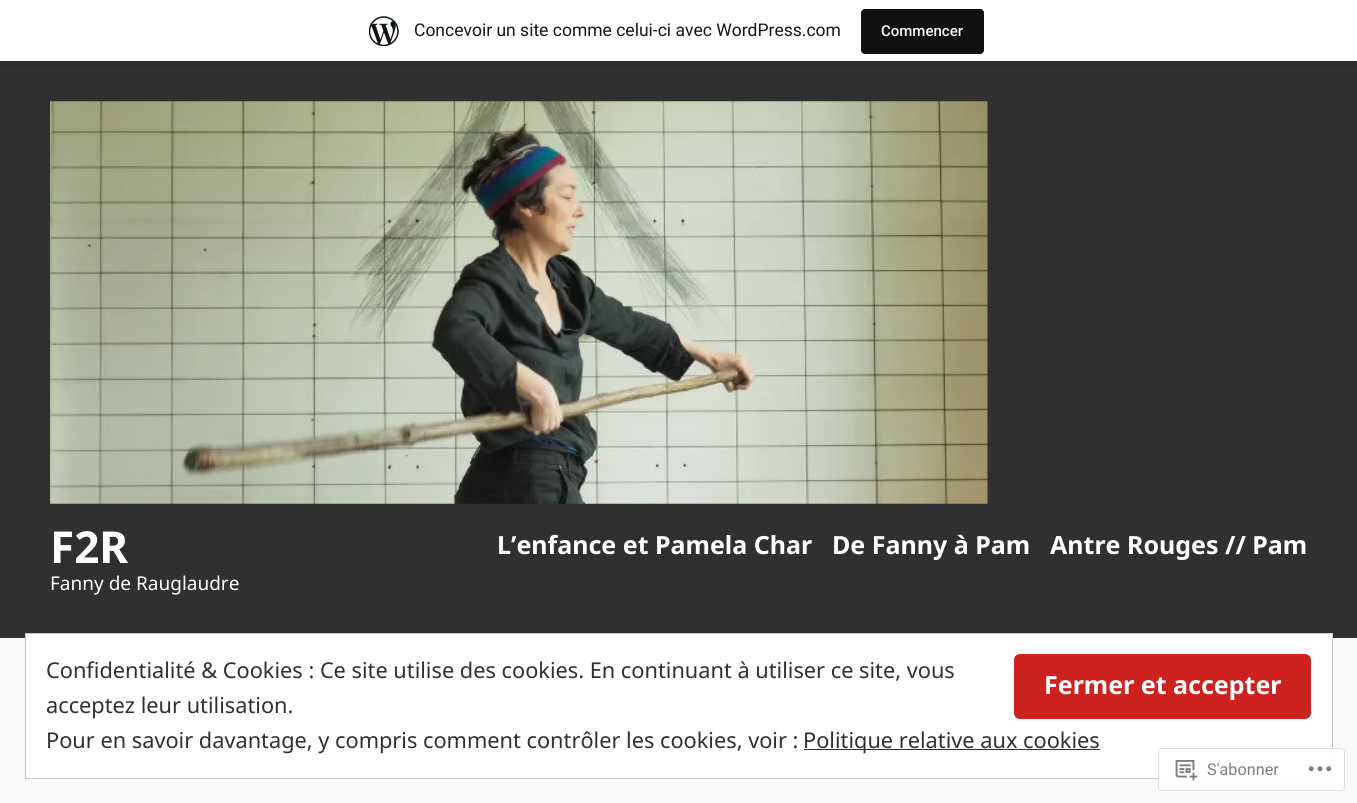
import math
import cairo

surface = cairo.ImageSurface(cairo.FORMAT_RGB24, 1357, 803)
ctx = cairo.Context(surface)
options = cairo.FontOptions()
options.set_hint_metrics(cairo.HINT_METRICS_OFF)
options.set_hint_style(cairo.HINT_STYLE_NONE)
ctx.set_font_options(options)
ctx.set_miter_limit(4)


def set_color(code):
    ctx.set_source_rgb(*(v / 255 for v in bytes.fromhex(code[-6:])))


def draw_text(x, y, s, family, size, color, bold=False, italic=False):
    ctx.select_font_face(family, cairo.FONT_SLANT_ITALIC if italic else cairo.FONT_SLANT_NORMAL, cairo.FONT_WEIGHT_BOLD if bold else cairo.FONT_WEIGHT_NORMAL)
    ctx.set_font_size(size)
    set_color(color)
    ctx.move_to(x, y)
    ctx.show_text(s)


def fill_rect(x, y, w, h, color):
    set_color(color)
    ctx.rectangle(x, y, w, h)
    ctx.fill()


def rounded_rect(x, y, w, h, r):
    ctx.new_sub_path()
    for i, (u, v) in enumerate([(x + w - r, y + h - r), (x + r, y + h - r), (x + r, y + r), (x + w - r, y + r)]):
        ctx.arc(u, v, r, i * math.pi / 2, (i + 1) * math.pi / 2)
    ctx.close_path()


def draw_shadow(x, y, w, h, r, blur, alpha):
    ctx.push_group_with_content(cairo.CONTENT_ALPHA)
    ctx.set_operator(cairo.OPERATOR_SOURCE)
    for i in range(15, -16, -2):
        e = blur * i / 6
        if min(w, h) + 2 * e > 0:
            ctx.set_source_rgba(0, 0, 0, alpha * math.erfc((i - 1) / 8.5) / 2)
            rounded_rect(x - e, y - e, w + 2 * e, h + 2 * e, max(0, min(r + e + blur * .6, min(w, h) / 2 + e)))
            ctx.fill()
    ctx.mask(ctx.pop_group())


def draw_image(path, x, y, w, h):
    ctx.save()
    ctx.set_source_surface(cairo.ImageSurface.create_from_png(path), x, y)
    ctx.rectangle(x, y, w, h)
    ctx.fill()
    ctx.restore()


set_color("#f8f8f8")
ctx.paint()
fill_rect(0, 61, 1357, 577, "#303030")
set_color("#000000")
draw_shadow(0, 1, 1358, 62, 0, 1, 0.05)
set_color("#2b2b2b")
ctx.new_path()
ctx.move_to(1, 61)
ctx.line_to(1, 65)
ctx.line_to(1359, 65)
ctx.line_to(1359, 4)
ctx.line_to(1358, 4)
ctx.line_to(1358, 61)
ctx.close_path()
ctx.fill()
fill_rect(0, 0, 1357, 61, "#ffffff")
draw_image("assets/img1.png", 369, 16, 30, 30)
draw_text(414, 36, "Concevoir un site comme celui-ci avec WordPress.com", "Roboto", 17.5, "#171717")
set_color("#111111")
rounded_rect(861, 9, 123, 45, 4)
ctx.fill()
draw_text(881, 36, "Commencer", "Roboto Medium", 15, "#f6f7f7")
draw_image("assets/img2.png", 50, 101, 938, 403)
draw_text(50, 563, "F2R", "Noto Sans", 44, "#ffffff", bold=True)
draw_text(497, 554, "L’enfance et Pamela Char", "Noto Sans", 25, "#ffffff", bold=True)
draw_text(832, 554, "De Fanny à Pam", "Noto Sans", 25, "#ffffff", bold=True)
draw_text(1050, 554, "Antre Rouges // Pam", "Noto Sans", 25, "#ffffff", bold=True)
draw_text(50, 590, "Fanny de Rauglaudre", "Noto Sans", 19, "#ffffff")
ctx.rectangle(25.5, 633.5, 1307, 145)
ctx.fill_preserve()
set_color("#c5c5c5")
ctx.set_line_width(1)
ctx.stroke()
draw_text(46, 678, "Confidentialité & Cookies : Ce site utilise des cookies. En continuant à utiliser ce site, vous", "Noto Sans", 21.75, "#303030")
set_color("#cd2220")
rounded_rect(1014, 654, 297, 65, 6)
ctx.fill()
draw_text(1044, 694, "Fermer et accepter", "Noto Sans", 25, "#ffffff", bold=True)
draw_text(46, 713, "acceptez leur utilisation.", "Noto Sans", 21.75, "#303030")
draw_text(46, 748, "Pour en savoir davantage, y compris comment contrôler les cookies, voir :", "Noto Sans", 21.75, "#303030")
fill_rect(804, 749, 296, 1, "#303030")
draw_text(803, 748, "Politique relative aux cookies", "Noto Sans", 21.75, "#303030")
ctx.set_source_rgba(1, 1, 1, 0.98)
rounded_rect(1158.5, 748.5, 186, 42, 3.5)
ctx.fill_preserve()
set_color("#dddddf")
ctx.stroke()
draw_image("assets/img3.png", 1175, 760, 23, 21)
draw_text(1207, 775, "S'abonner", "Roboto", 16.25, "#7b7f85")
draw_image("assets/img4.png", 1308, 766, 24, 6)
surface.write_to_png("output.png")
